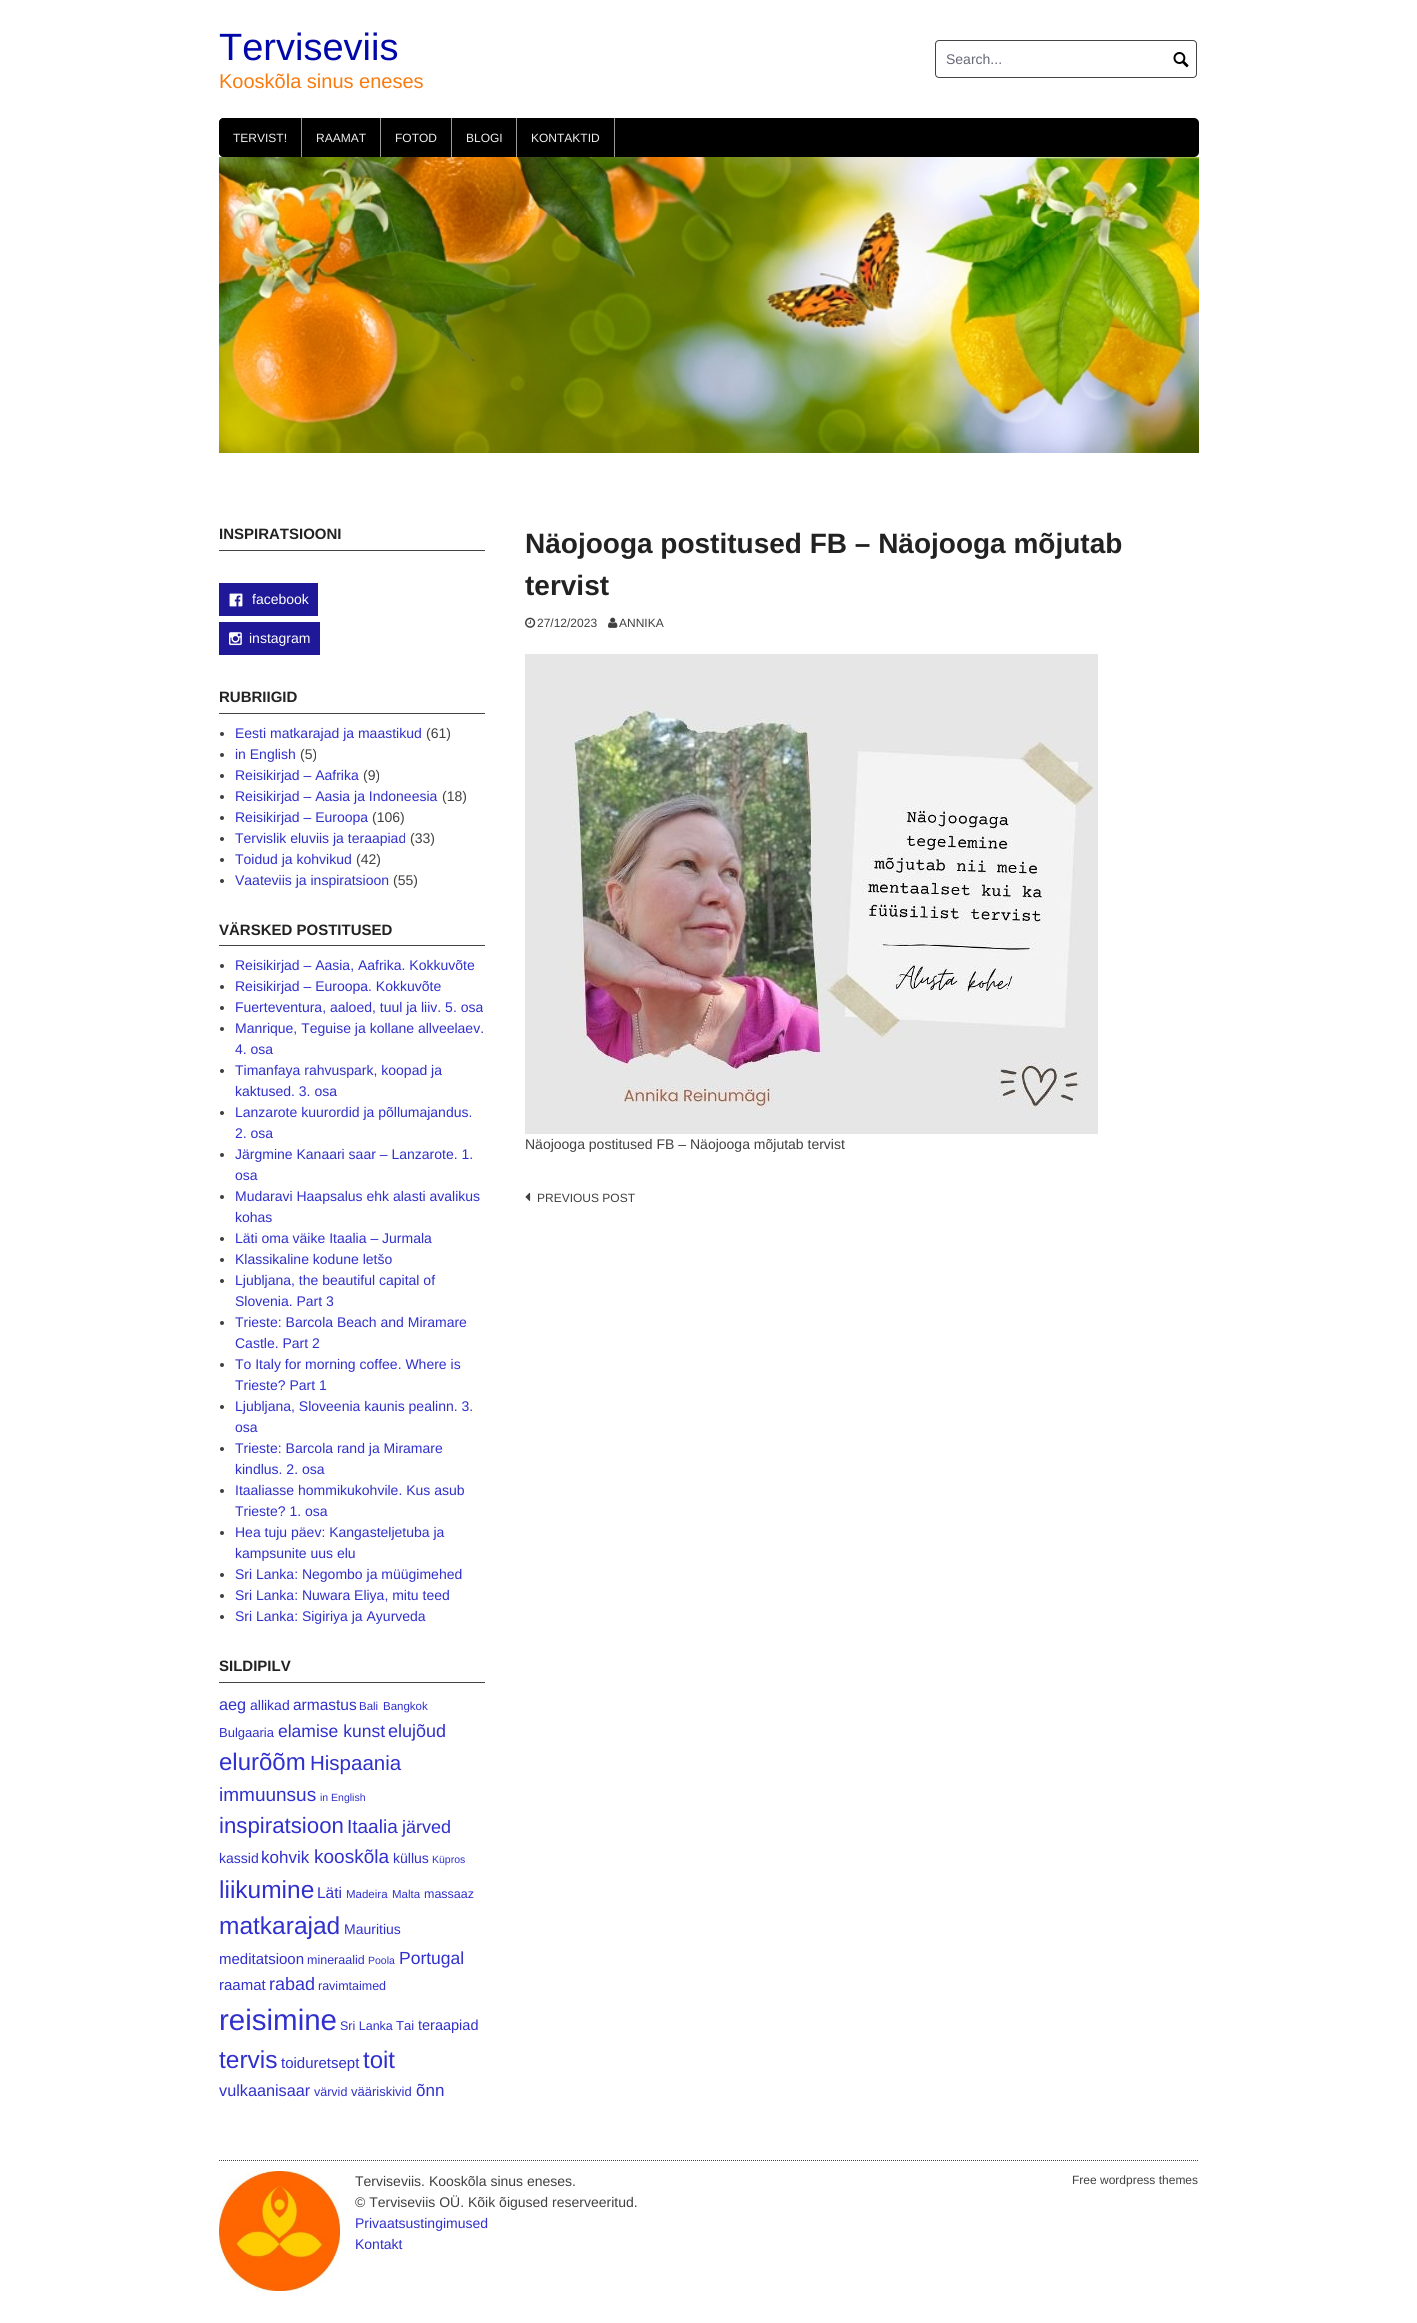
import math
import cairo

surface = cairo.ImageSurface(cairo.FORMAT_RGB24, 1417, 2323)
ctx = cairo.Context(surface)
options = cairo.FontOptions()
options.set_hint_metrics(cairo.HINT_METRICS_OFF)
options.set_hint_style(cairo.HINT_STYLE_NONE)
ctx.set_font_options(options)
ctx.set_miter_limit(4)


def set_color(code):
    ctx.set_source_rgb(*(v / 255 for v in bytes.fromhex(code[-6:])))


def draw_text(x, y, s, family, size, color, bold=False, italic=False):
    ctx.select_font_face(family, cairo.FONT_SLANT_ITALIC if italic else cairo.FONT_SLANT_NORMAL, cairo.FONT_WEIGHT_BOLD if bold else cairo.FONT_WEIGHT_NORMAL)
    ctx.set_font_size(size)
    set_color(color)
    ctx.move_to(x, y)
    ctx.show_text(s)


def fill_rect(x, y, w, h, color):
    set_color(color)
    ctx.rectangle(x, y, w, h)
    ctx.fill()


def rounded_rect(x, y, w, h, r):
    ctx.new_sub_path()
    for i, (u, v) in enumerate([(x + w - r, y + h - r), (x + r, y + h - r), (x + r, y + r), (x + w - r, y + r)]):
        ctx.arc(u, v, r, i * math.pi / 2, (i + 1) * math.pi / 2)
    ctx.close_path()


def draw_image(path, x, y, w, h):
    ctx.save()
    ctx.set_source_surface(cairo.ImageSurface.create_from_png(path), x, y)
    ctx.rectangle(x, y, w, h)
    ctx.fill()
    ctx.restore()


set_color("#ffffff")
ctx.paint()
draw_text(219, 60, "Terviseviis", "Liberation Sans", 38, "#0008aa")
draw_text(219, 88, "Kooskõla sinus eneses", "Liberation Sans", 20, "#f77b0e")
rounded_rect(935.5, 40.5, 261, 37, 3.5)
set_color("#444444")
ctx.set_line_width(1)
ctx.stroke()
draw_text(946, 64, "Search...", "Liberation Sans", 14, "#666677")
draw_image("assets/img1.png", 1173, 52, 16, 16)
set_color("#000000")
rounded_rect(219, 118, 980, 39, 5)
ctx.fill()
fill_rect(301, 118, 1, 39, "#999999")
set_color("#000000")
ctx.new_path()
ctx.move_to(224, 118)
ctx.line_to(301, 118)
ctx.line_to(301, 157)
ctx.line_to(224, 157)
ctx.curve_to(221, 157, 219, 155, 219, 152)
ctx.line_to(219, 123)
ctx.curve_to(219, 120, 221, 118, 224, 118)
ctx.close_path()
ctx.fill()
draw_text(233, 142, "TERVIST!", "Liberation Sans", 12, "#eeeeee")
fill_rect(380, 118, 1, 39, "#999999")
draw_text(316, 142, "RAAMAT", "Liberation Sans", 12, "#eeeeee")
fill_rect(451, 118, 1, 39, "#999999")
draw_text(395, 142, "FOTOD", "Liberation Sans", 12, "#eeeeee")
fill_rect(516, 118, 1, 39, "#999999")
draw_text(466, 142, "BLOGI", "Liberation Sans", 12, "#eeeeee")
fill_rect(614, 118, 1, 39, "#999999")
draw_text(531, 142, "KONTAKTID", "Liberation Sans", 12, "#eeeeee")
draw_image("assets/img2.png", 219, 157, 980, 296)
fill_rect(219, 550, 266, 1, "#444444")
draw_text(219, 539, "INSPIRATSIOONI", "Liberation Sans", 15, "#222222", bold=True)
fill_rect(219, 583, 99, 33, "#1f1999")
draw_image("assets/img3.png", 229, 593, 14, 14)
draw_text(252, 604, "facebook", "Liberation Sans", 14, "#ffffff")
fill_rect(219, 622, 101, 33, "#1f1999")
draw_image("assets/img4.png", 229, 632, 13, 14)
draw_text(249, 643, "instagram", "Liberation Sans", 14, "#ffffff")
fill_rect(219, 713, 266, 1, "#444444")
draw_text(219, 702, "RUBRIIGID", "Liberation Sans", 15, "#222222", bold=True)
set_color("#404040")
ctx.new_path()
ctx.arc(222, 734, 2, 0, 2 * math.pi)
ctx.fill()
draw_text(235, 738, "Eesti matkarajad ja maastikud", "Liberation Sans", 14, "#3030cc")
draw_text(426, 738, "(61)", "Liberation Sans", 14, "#404040")
ctx.new_path()
ctx.arc(222, 755, 2, 0, 2 * math.pi)
ctx.fill()
draw_text(235, 759, "in English", "Liberation Sans", 14, "#3030cc")
draw_text(300, 759, "(5)", "Liberation Sans", 14, "#404040")
ctx.new_path()
ctx.arc(222, 776, 2, 0, 2 * math.pi)
ctx.fill()
draw_text(235, 780, "Reisikirjad – Aafrika", "Liberation Sans", 14, "#3030cc")
draw_text(363, 780, "(9)", "Liberation Sans", 14, "#404040")
ctx.new_path()
ctx.arc(222, 797, 2, 0, 2 * math.pi)
ctx.fill()
draw_text(235, 801, "Reisikirjad – Aasia ja Indoneesia", "Liberation Sans", 14, "#3030cc")
draw_text(442, 801, "(18)", "Liberation Sans", 14, "#404040")
ctx.new_path()
ctx.arc(222, 818, 2, 0, 2 * math.pi)
ctx.fill()
draw_text(235, 822, "Reisikirjad – Euroopa", "Liberation Sans", 14, "#3030cc")
draw_text(372, 822, "(106)", "Liberation Sans", 14, "#404040")
ctx.new_path()
ctx.arc(222, 839, 2, 0, 2 * math.pi)
ctx.fill()
draw_text(235, 843, "Tervislik eluviis ja teraapiad", "Liberation Sans", 14, "#3030cc")
draw_text(410, 843, "(33)", "Liberation Sans", 14, "#404040")
ctx.new_path()
ctx.arc(222, 860, 2, 0, 2 * math.pi)
ctx.fill()
draw_text(235, 864, "Toidud ja kohvikud", "Liberation Sans", 14, "#3030cc")
draw_text(356, 864, "(42)", "Liberation Sans", 14, "#404040")
ctx.new_path()
ctx.arc(222, 881, 2, 0, 2 * math.pi)
ctx.fill()
draw_text(235, 885, "Vaateviis ja inspiratsioon", "Liberation Sans", 14, "#3030cc")
draw_text(393, 885, "(55)", "Liberation Sans", 14, "#404040")
fill_rect(219, 945, 266, 1, "#444444")
draw_text(219, 935, "VÄRSKED POSTITUSED", "Liberation Sans", 15, "#222222", bold=True)
set_color("#404040")
ctx.new_path()
ctx.arc(222, 966, 2, 0, 2 * math.pi)
ctx.fill()
draw_text(235, 970, "Reisikirjad – Aasia, Aafrika. Kokkuvõte", "Liberation Sans", 14, "#3030cc")
set_color("#404040")
ctx.new_path()
ctx.arc(222, 987, 2, 0, 2 * math.pi)
ctx.fill()
draw_text(235, 991, "Reisikirjad – Euroopa. Kokkuvõte", "Liberation Sans", 14, "#3030cc")
set_color("#404040")
ctx.new_path()
ctx.arc(222, 1008, 2, 0, 2 * math.pi)
ctx.fill()
draw_text(235, 1012, "Fuerteventura, aaloed, tuul ja liiv. 5. osa", "Liberation Sans", 14, "#3030cc")
set_color("#404040")
ctx.new_path()
ctx.arc(222, 1029, 2, 0, 2 * math.pi)
ctx.fill()
draw_text(235, 1033, "Manrique, Teguise ja kollane allveelaev.", "Liberation Sans", 14, "#3030cc")
draw_text(235, 1054, "4. osa", "Liberation Sans", 14, "#3030cc")
set_color("#404040")
ctx.new_path()
ctx.arc(222, 1071, 2, 0, 2 * math.pi)
ctx.fill()
draw_text(235, 1075, "Timanfaya rahvuspark, koopad ja", "Liberation Sans", 14, "#3030cc")
draw_text(235, 1096, "kaktused. 3. osa", "Liberation Sans", 14, "#3030cc")
set_color("#404040")
ctx.new_path()
ctx.arc(222, 1113, 2, 0, 2 * math.pi)
ctx.fill()
draw_text(235, 1117, "Lanzarote kuurordid ja põllumajandus.", "Liberation Sans", 14, "#3030cc")
draw_text(235, 1138, "2. osa", "Liberation Sans", 14, "#3030cc")
set_color("#404040")
ctx.new_path()
ctx.arc(222, 1155, 2, 0, 2 * math.pi)
ctx.fill()
draw_text(235, 1159, "Järgmine Kanaari saar – Lanzarote. 1.", "Liberation Sans", 14, "#3030cc")
draw_text(235, 1180, "osa", "Liberation Sans", 14, "#3030cc")
set_color("#404040")
ctx.new_path()
ctx.arc(222, 1197, 2, 0, 2 * math.pi)
ctx.fill()
draw_text(235, 1201, "Mudaravi Haapsalus ehk alasti avalikus", "Liberation Sans", 14, "#3030cc")
draw_text(235, 1222, "kohas", "Liberation Sans", 14, "#3030cc")
set_color("#404040")
ctx.new_path()
ctx.arc(222, 1239, 2, 0, 2 * math.pi)
ctx.fill()
draw_text(235, 1243, "Läti oma väike Itaalia – Jurmala", "Liberation Sans", 14, "#3030cc")
set_color("#404040")
ctx.new_path()
ctx.arc(222, 1260, 2, 0, 2 * math.pi)
ctx.fill()
draw_text(235, 1264, "Klassikaline kodune letšo", "Liberation Sans", 14, "#3030cc")
set_color("#404040")
ctx.new_path()
ctx.arc(222, 1281, 2, 0, 2 * math.pi)
ctx.fill()
draw_text(235, 1285, "Ljubljana, the beautiful capital of", "Liberation Sans", 14, "#3030cc")
draw_text(235, 1306, "Slovenia. Part 3", "Liberation Sans", 14, "#3030cc")
set_color("#404040")
ctx.new_path()
ctx.arc(222, 1323, 2, 0, 2 * math.pi)
ctx.fill()
draw_text(235, 1327, "Trieste: Barcola Beach and Miramare", "Liberation Sans", 14, "#3030cc")
draw_text(235, 1348, "Castle. Part 2", "Liberation Sans", 14, "#3030cc")
set_color("#404040")
ctx.new_path()
ctx.arc(222, 1365, 2, 0, 2 * math.pi)
ctx.fill()
draw_text(235, 1369, "To Italy for morning coffee. Where is", "Liberation Sans", 14, "#3030cc")
draw_text(235, 1390, "Trieste? Part 1", "Liberation Sans", 14, "#3030cc")
set_color("#404040")
ctx.new_path()
ctx.arc(222, 1407, 2, 0, 2 * math.pi)
ctx.fill()
draw_text(235, 1411, "Ljubljana, Sloveenia kaunis pealinn. 3.", "Liberation Sans", 14, "#3030cc")
draw_text(235, 1432, "osa", "Liberation Sans", 14, "#3030cc")
set_color("#404040")
ctx.new_path()
ctx.arc(222, 1449, 2, 0, 2 * math.pi)
ctx.fill()
draw_text(235, 1453, "Trieste: Barcola rand ja Miramare", "Liberation Sans", 14, "#3030cc")
draw_text(235, 1474, "kindlus. 2. osa", "Liberation Sans", 14, "#3030cc")
set_color("#404040")
ctx.new_path()
ctx.arc(222, 1491, 2, 0, 2 * math.pi)
ctx.fill()
draw_text(235, 1495, "Itaaliasse hommikukohvile. Kus asub", "Liberation Sans", 14, "#3030cc")
draw_text(235, 1516, "Trieste? 1. osa", "Liberation Sans", 14, "#3030cc")
set_color("#404040")
ctx.new_path()
ctx.arc(222, 1533, 2, 0, 2 * math.pi)
ctx.fill()
draw_text(235, 1537, "Hea tuju päev: Kangasteljetuba ja", "Liberation Sans", 14, "#3030cc")
draw_text(235, 1558, "kampsunite uus elu", "Liberation Sans", 14, "#3030cc")
set_color("#404040")
ctx.new_path()
ctx.arc(222, 1575, 2, 0, 2 * math.pi)
ctx.fill()
draw_text(235, 1579, "Sri Lanka: Negombo ja müügimehed", "Liberation Sans", 14, "#3030cc")
set_color("#404040")
ctx.new_path()
ctx.arc(222, 1596, 2, 0, 2 * math.pi)
ctx.fill()
draw_text(235, 1600, "Sri Lanka: Nuwara Eliya, mitu teed", "Liberation Sans", 14, "#3030cc")
set_color("#404040")
ctx.new_path()
ctx.arc(222, 1617, 2, 0, 2 * math.pi)
ctx.fill()
draw_text(235, 1621, "Sri Lanka: Sigiriya ja Ayurveda", "Liberation Sans", 14, "#3030cc")
fill_rect(219, 1682, 266, 1, "#444444")
draw_text(219, 1671, "SILDIPILV", "Liberation Sans", 15, "#222222", bold=True)
draw_text(219, 1710, "aeg", "Liberation Sans", 16.25, "#3030cc")
draw_text(250, 1710, "allikad", "Liberation Sans", 14, "#3030cc")
draw_text(293, 1710, "armastus", "Liberation Sans", 15.5, "#3030cc")
draw_text(359, 1710, "Bali", "Liberation Sans", 11.5, "#3030cc")
draw_text(383, 1710, "Bangkok", "Liberation Sans", 11.5, "#3030cc")
draw_text(219, 1737, "Bulgaaria", "Liberation Sans", 13, "#3030cc")
draw_text(278, 1737, "elamise kunst", "Liberation Sans", 17.5, "#3030cc")
draw_text(388, 1737, "elujõud", "Liberation Sans", 18, "#3030cc")
draw_text(219, 1770, "elurõõm", "Liberation Sans", 24, "#3030cc")
draw_text(310, 1770, "Hispaania", "Liberation Sans", 20.5, "#3030cc")
draw_text(219, 1801, "immuunsus", "Liberation Sans", 19, "#3030cc")
draw_text(320, 1801, "in English", "Liberation Sans", 10.5, "#3030cc")
draw_text(219, 1833, "inspiratsioon", "Liberation Sans", 22.25, "#3030cc")
draw_text(347, 1833, "Itaalia", "Liberation Sans", 19, "#3030cc")
draw_text(402, 1833, "järved", "Liberation Sans", 18, "#3030cc")
draw_text(219, 1863, "kassid", "Liberation Sans", 14, "#3030cc")
draw_text(261, 1863, "kohvik", "Liberation Sans", 17, "#3030cc")
draw_text(314, 1863, "kooskõla", "Liberation Sans", 19, "#3030cc")
draw_text(393, 1863, "küllus", "Liberation Sans", 14, "#3030cc")
draw_text(432, 1863, "Küpros", "Liberation Sans", 10.5, "#3030cc")
draw_text(219, 1898, "liikumine", "Liberation Sans", 24.5, "#3030cc")
draw_text(317, 1898, "Läti", "Liberation Sans", 15.5, "#3030cc")
draw_text(346, 1898, "Madeira", "Liberation Sans", 11.5, "#3030cc")
draw_text(392, 1898, "Malta", "Liberation Sans", 11.5, "#3030cc")
draw_text(424, 1898, "massaaz", "Liberation Sans", 12.5, "#3030cc")
draw_text(219, 1934, "matkarajad", "Liberation Sans", 24.5, "#3030cc")
draw_text(344, 1934, "Mauritius", "Liberation Sans", 14, "#3030cc")
draw_text(219, 1964, "meditatsioon", "Liberation Sans", 15, "#3030cc")
draw_text(307, 1964, "mineraalid", "Liberation Sans", 12.5, "#3030cc")
draw_text(368, 1964, "Poola", "Liberation Sans", 10.5, "#3030cc")
draw_text(399, 1964, "Portugal", "Liberation Sans", 17.5, "#3030cc")
draw_text(219, 1990, "raamat", "Liberation Sans", 15, "#3030cc")
draw_text(269, 1990, "rabad", "Liberation Sans", 18, "#3030cc")
draw_text(318, 1990, "ravimtaimed", "Liberation Sans", 12.5, "#3030cc")
draw_text(219, 2030, "reisimine", "Liberation Sans", 29.5, "#3030cc")
draw_text(340, 2030, "Sri Lanka", "Liberation Sans", 12.5, "#3030cc")
draw_text(396, 2030, "Tai", "Liberation Sans", 13, "#3030cc")
draw_text(418, 2030, "teraapiad", "Liberation Sans", 14.5, "#3030cc")
draw_text(219, 2068, "tervis", "Liberation Sans", 24.5, "#3030cc")
draw_text(281, 2068, "toiduretsept", "Liberation Sans", 15, "#3030cc")
draw_text(363, 2068, "toit", "Liberation Sans", 24, "#3030cc")
draw_text(219, 2096, "vulkaanisaar", "Liberation Sans", 16.25, "#3030cc")
draw_text(314, 2096, "värvid", "Liberation Sans", 12.5, "#3030cc")
draw_text(351, 2096, "vääriskivid", "Liberation Sans", 13, "#3030cc")
draw_text(416, 2096, "õnn", "Liberation Sans", 17, "#3030cc")
draw_text(525, 553, "Näojooga postitused FB – Näojooga mõjutab", "Liberation Sans", 28, "#222222", bold=True)
draw_text(525, 595, "tervist", "Liberation Sans", 28, "#222222", bold=True)
draw_image("assets/img5.png", 525, 617, 11, 11)
draw_text(537, 627, "27/12/2023", "Liberation Sans", 12, "#404040")
draw_image("assets/img6.png", 608, 617, 10, 11)
draw_text(619, 627, "ANNIKA", "Liberation Sans", 12, "#404040")
draw_image("assets/img7.png", 525, 654, 573, 480)
draw_text(525, 1149, "Näojooga postitused FB – Näojooga mõjutab tervist", "Liberation Sans", 14, "#404040")
draw_image("assets/img8.png", 525, 1192, 6, 9)
draw_text(537, 1202, "PREVIOUS POST", "Liberation Sans", 12, "#404040")
ctx.new_path()
ctx.move_to(219, 2160.5)
ctx.line_to(1199, 2160.5)
set_color("#444444")
ctx.set_dash([1, 1])
ctx.stroke()
draw_image("assets/img9.png", 219, 2171, 121, 120)
draw_text(355, 2186, "Terviseviis. Kooskõla sinus eneses.", "Liberation Sans", 14, "#404040")
draw_text(355, 2207, "© Terviseviis OÜ. Kõik õigused reserveeritud.", "Liberation Sans", 14, "#404040")
draw_text(355, 2228, "Privaatsustingimused", "Liberation Sans", 14, "#3030cc")
draw_text(355, 2249, "Kontakt", "Liberation Sans", 14, "#3030cc")
draw_text(1072, 2184, "Free wordpress themes", "Liberation Sans", 12, "#404040")
surface.write_to_png("output.png")
